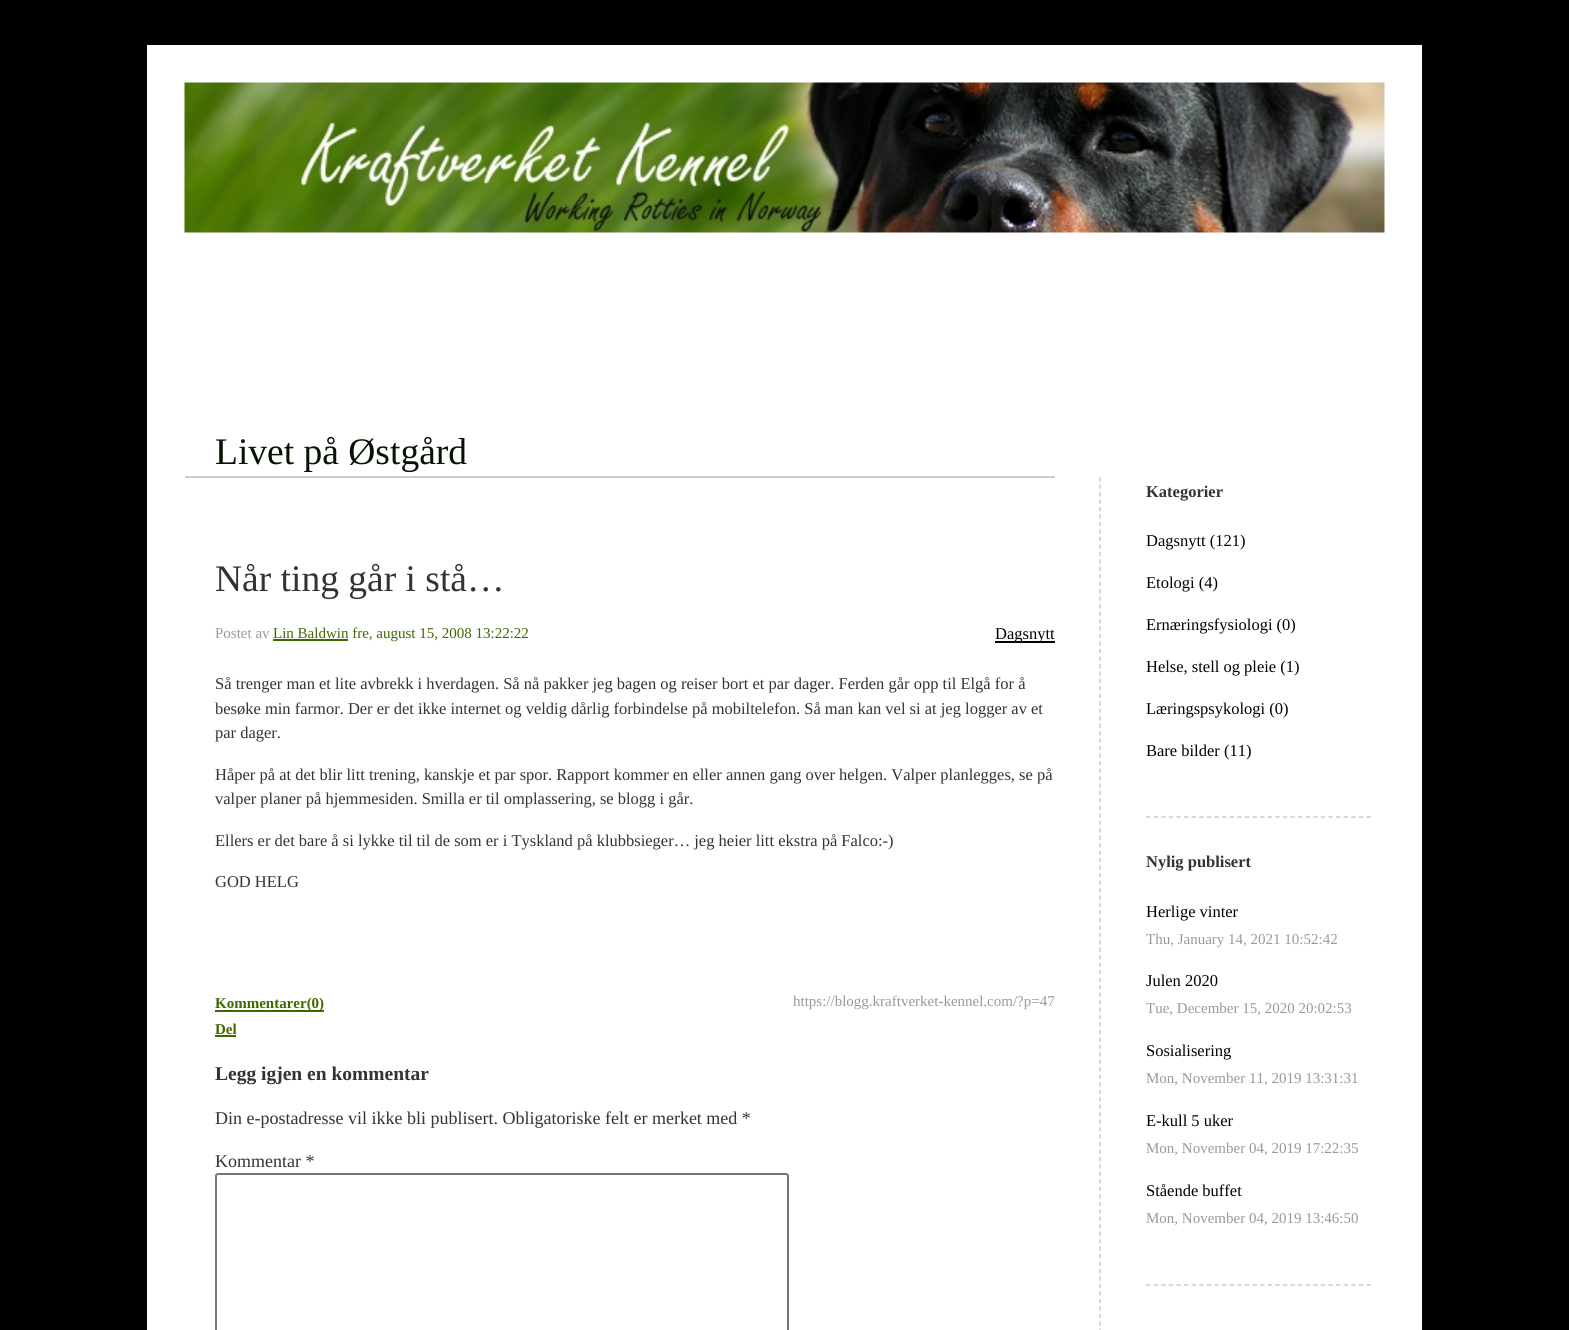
import math
import cairo

surface = cairo.ImageSurface(cairo.FORMAT_RGB24, 1569, 1330)
ctx = cairo.Context(surface)
options = cairo.FontOptions()
options.set_hint_metrics(cairo.HINT_METRICS_OFF)
options.set_hint_style(cairo.HINT_STYLE_NONE)
ctx.set_font_options(options)
ctx.set_miter_limit(4)


def set_color(code):
    ctx.set_source_rgb(*(v / 255 for v in bytes.fromhex(code[-6:])))


def draw_text(x, y, s, family, size, color, bold=False, italic=False):
    ctx.select_font_face(family, cairo.FONT_SLANT_ITALIC if italic else cairo.FONT_SLANT_NORMAL, cairo.FONT_WEIGHT_BOLD if bold else cairo.FONT_WEIGHT_NORMAL)
    ctx.set_font_size(size)
    set_color(color)
    ctx.move_to(x, y)
    ctx.show_text(s)


def fill_rect(x, y, w, h, color):
    set_color(color)
    ctx.rectangle(x, y, w, h)
    ctx.fill()


def rounded_rect(x, y, w, h, r):
    ctx.new_sub_path()
    for i, (u, v) in enumerate([(x + w - r, y + h - r), (x + r, y + h - r), (x + r, y + r), (x + w - r, y + r)]):
        ctx.arc(u, v, r, i * math.pi / 2, (i + 1) * math.pi / 2)
    ctx.close_path()


def draw_image(path, x, y, w, h):
    ctx.save()
    ctx.set_source_surface(cairo.ImageSurface.create_from_png(path), x, y)
    ctx.rectangle(x, y, w, h)
    ctx.fill()
    ctx.restore()


set_color("#000000")
ctx.paint()
fill_rect(147, 45, 1275, 1285, "#ffffff")
draw_image("assets/img1.png", 184, 82, 1201, 151)
fill_rect(185, 476, 870, 2, "#cccccc")
draw_text(215, 464, "Livet på Østgård", "Liberation Serif", 37.5, "#071301")
draw_text(215, 591, "Når ting går i stå…", "Liberation Serif", 37.5, "#333333")
draw_text(215, 638, "Postet av", "Liberation Serif", 15, "#999999")
fill_rect(273, 639, 75, 2, "#406700")
draw_text(273, 638, "Lin Baldwin fre, august 15, 2008 13:22:22", "Liberation Serif", 15, "#406700")
fill_rect(995, 641, 60, 2, "#000000")
draw_text(995, 639, "Dagsnytt", "Liberation Serif", 16.5, "#000000")
draw_text(215, 689, "Så trenger man et lite avbrekk i hverdagen. Så nå pakker jeg bagen og reiser bort et par dager. Ferden går opp til Elgå for å", "Liberation Serif", 16.5, "#333333")
draw_text(215, 714, "besøke min farmor. Der er det ikke internet og veldig dårlig forbindelse på mobiltelefon. Så man kan vel si at jeg logger av et", "Liberation Serif", 16.5, "#333333")
draw_text(215, 738, "par dager.", "Liberation Serif", 16.5, "#333333")
draw_text(215, 780, "Håper på at det blir litt trening, kanskje et par spor. Rapport kommer en eller annen gang over helgen. Valper planlegges, se på", "Liberation Serif", 16.5, "#333333")
draw_text(215, 804, "valper planer på hjemmesiden. Smilla er til omplassering, se blogg i går.", "Liberation Serif", 16.5, "#333333")
draw_text(215, 846, "Ellers er det bare å si lykke til til de som er i Tyskland på klubbsieger… jeg heier litt ekstra på Falco:-)", "Liberation Serif", 16.5, "#333333")
draw_text(215, 887, "GOD HELG", "Liberation Serif", 16.5, "#333333")
fill_rect(215, 1010, 109, 2, "#406700")
draw_text(215, 1008, "Kommentarer(0)", "Liberation Serif", 15, "#406700", bold=True)
draw_text(793, 1006, "https://blogg.kraftverket-kennel.com/?p=47", "Liberation Serif", 15, "#999999")
draw_text(215, 1034, "Del", "Liberation Serif", 15, "#406700", bold=True)
fill_rect(215, 1035, 21, 2, "#406700")
draw_text(215, 1080, "Legg igjen en kommentar", "Liberation Serif", 19.5, "#333333", bold=True)
draw_text(215, 1124, "Din e-postadresse vil ikke bli publisert. Obligatoriske felt er merket med *", "Liberation Serif", 18, "#333333")
draw_text(215, 1167, "Kommentar *", "Liberation Serif", 18, "#333333")
rounded_rect(216, 1174, 572, 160, 2)
set_color("#767676")
ctx.stroke()
ctx.new_path()
ctx.move_to(1100, 477)
ctx.line_to(1100, 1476)
set_color("#cccccc")
ctx.set_line_width(1.5)
ctx.set_dash([4.5, 2.97])
ctx.stroke()
ctx.new_path()
ctx.move_to(1146, 817)
ctx.line_to(1371, 817)
ctx.set_dash([4.5, 3.1])
ctx.stroke()
draw_text(1146, 497, "Kategorier", "Liberation Serif", 16.5, "#333333", bold=True)
draw_text(1146, 546, "Dagsnytt (121)", "Liberation Serif", 16.5, "#000000")
draw_text(1146, 588, "Etologi (4)", "Liberation Serif", 16.5, "#000000")
draw_text(1146, 630, "Ernæringsfysiologi (0)", "Liberation Serif", 16.5, "#000000")
draw_text(1146, 672, "Helse, stell og pleie (1)", "Liberation Serif", 16.5, "#000000")
draw_text(1146, 714, "Læringspsykologi (0)", "Liberation Serif", 16.5, "#000000")
draw_text(1146, 756, "Bare bilder (11)", "Liberation Serif", 16.5, "#000000")
ctx.new_path()
ctx.move_to(1146, 1285)
ctx.line_to(1371, 1285)
set_color("#cccccc")
ctx.stroke()
draw_text(1146, 867, "Nylig publisert", "Liberation Serif", 16.5, "#333333", bold=True)
draw_text(1146, 917, "Herlige vinter", "Liberation Serif", 16.5, "#000000")
draw_text(1146, 944, "Thu, January 14, 2021 10:52:42", "Liberation Serif", 15, "#999999")
draw_text(1146, 986, "Julen 2020", "Liberation Serif", 16.5, "#000000")
draw_text(1146, 1013, "Tue, December 15, 2020 20:02:53", "Liberation Serif", 15, "#999999")
draw_text(1146, 1056, "Sosialisering", "Liberation Serif", 16.5, "#000000")
draw_text(1146, 1083, "Mon, November 11, 2019 13:31:31", "Liberation Serif", 15, "#999999")
draw_text(1146, 1126, "E-kull 5 uker", "Liberation Serif", 16.5, "#000000")
draw_text(1146, 1153, "Mon, November 04, 2019 17:22:35", "Liberation Serif", 15, "#999999")
draw_text(1146, 1196, "Stående buffet", "Liberation Serif", 16.5, "#000000")
draw_text(1146, 1223, "Mon, November 04, 2019 13:46:50", "Liberation Serif", 15, "#999999")
surface.write_to_png("output.png")
